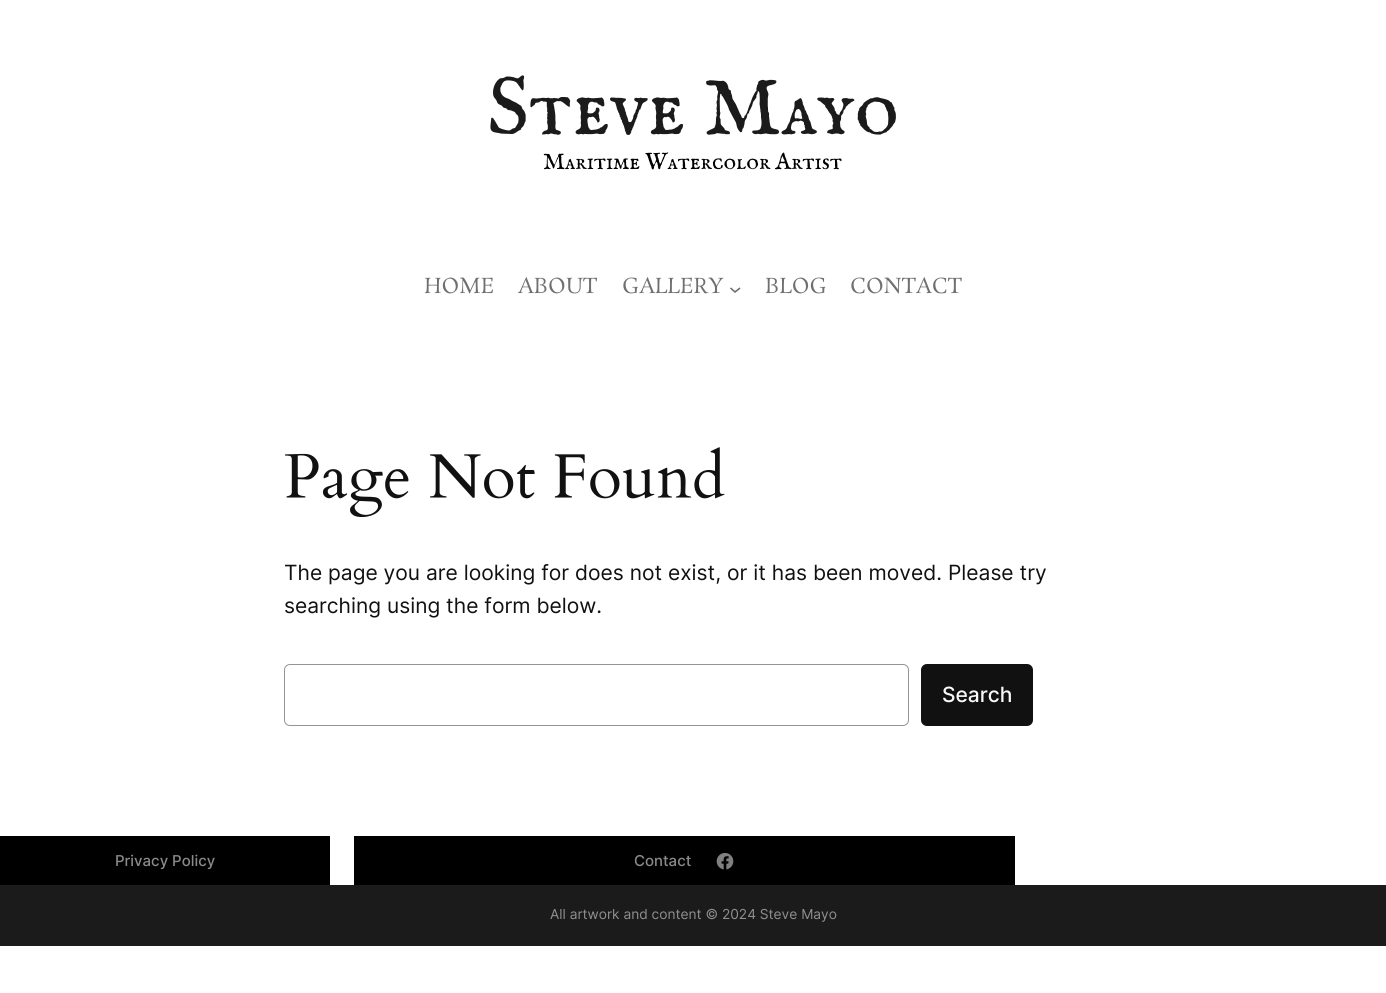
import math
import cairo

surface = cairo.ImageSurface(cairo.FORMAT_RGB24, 1386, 993)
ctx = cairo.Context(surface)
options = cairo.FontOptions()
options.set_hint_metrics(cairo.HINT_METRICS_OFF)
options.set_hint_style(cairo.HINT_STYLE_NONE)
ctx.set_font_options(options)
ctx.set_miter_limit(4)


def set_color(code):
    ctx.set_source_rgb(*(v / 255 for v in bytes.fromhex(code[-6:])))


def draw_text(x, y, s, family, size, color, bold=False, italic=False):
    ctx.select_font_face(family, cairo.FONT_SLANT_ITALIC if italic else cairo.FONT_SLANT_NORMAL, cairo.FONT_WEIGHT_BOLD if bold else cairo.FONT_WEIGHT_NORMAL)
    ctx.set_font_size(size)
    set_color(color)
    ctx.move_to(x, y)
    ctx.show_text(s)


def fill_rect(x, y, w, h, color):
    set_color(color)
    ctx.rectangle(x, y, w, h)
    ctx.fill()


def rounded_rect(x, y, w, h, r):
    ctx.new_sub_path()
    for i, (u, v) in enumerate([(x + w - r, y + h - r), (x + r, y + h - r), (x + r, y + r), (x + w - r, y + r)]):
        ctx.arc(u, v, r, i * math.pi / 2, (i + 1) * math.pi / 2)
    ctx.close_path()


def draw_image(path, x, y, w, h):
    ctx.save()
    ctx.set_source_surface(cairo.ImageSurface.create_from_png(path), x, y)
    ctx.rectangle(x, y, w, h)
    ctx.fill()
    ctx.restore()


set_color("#ffffff")
ctx.paint()
draw_text(487, 134, "Steve Mayo", "IM FELL English SC", 83, "#1c1b1b")
draw_text(543, 169, "Maritime Watercolor Artist", "IM FELL English SC", 23.5, "#000000")
draw_text(424, 293, "HOME", "Rosarivo", 21, "#6f6f6f")
draw_text(518, 293, "ABOUT", "Rosarivo", 21, "#6f6f6f")
draw_text(622, 293, "GALLERY", "Rosarivo", 21, "#6f6f6f")
ctx.new_path()
ctx.move_to(730.5, 288)
ctx.line_to(735, 292)
ctx.line_to(740, 288)
ctx.set_line_width(1.6)
ctx.stroke()
draw_text(765, 293, "BLOG", "Rosarivo", 21, "#6f6f6f")
draw_text(850, 293, "CONTACT", "Rosarivo", 21, "#6f6f6f")
draw_image("assets/img1.png", 285, 447, 440, 71)
draw_text(284, 580, "The page you are looking for does not exist, or it has been moved. Please try", "Inter", 21, "#111111")
draw_text(284, 613, "searching using the form below.", "Inter", 21, "#111111")
rounded_rect(284.5, 664.5, 624, 61, 5.5)
set_color("#949494")
ctx.set_line_width(1)
ctx.stroke()
set_color("#111111")
rounded_rect(921, 664, 112, 62, 6)
ctx.fill()
draw_text(942, 702, "Search", "Inter Medium", 21, "#f9f9f9")
fill_rect(0, 836, 330, 49, "#000000")
draw_text(115, 866, "Privacy Policy", "Inter Medium", 15, "#8a8a8a")
fill_rect(354, 836, 661, 49, "#000000")
draw_text(634, 866, "Contact", "Inter Medium", 15, "#8a8a8a")
draw_image("assets/img2.png", 716, 853, 18, 17)
fill_rect(0, 885, 1386, 61, "#1c1b1b")
draw_text(550, 919, "All artwork and content © 2024 Steve Mayo", "Inter", 13.75, "#908f8f")
surface.write_to_png("output.png")
